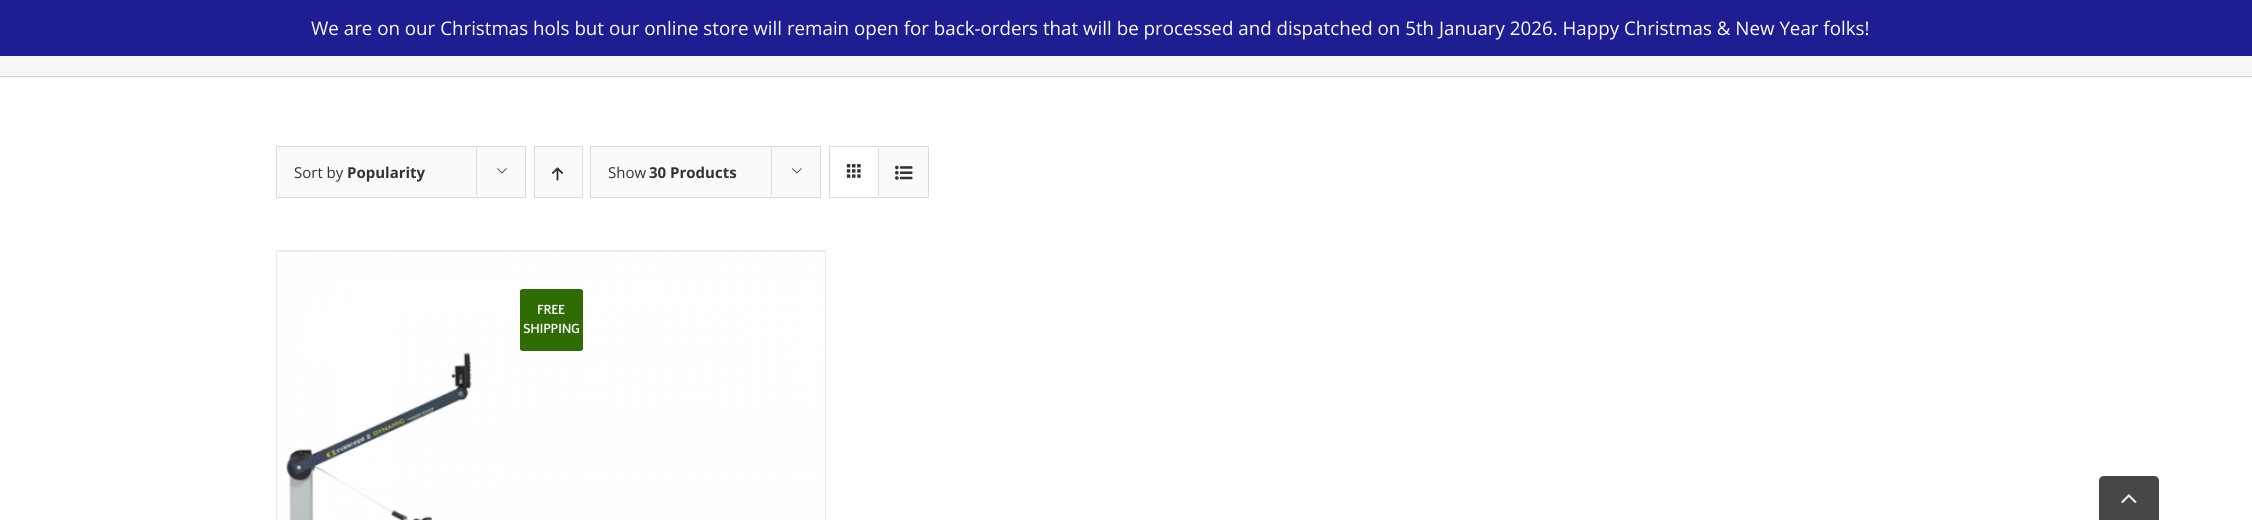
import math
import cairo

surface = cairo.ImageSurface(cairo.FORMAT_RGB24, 2252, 520)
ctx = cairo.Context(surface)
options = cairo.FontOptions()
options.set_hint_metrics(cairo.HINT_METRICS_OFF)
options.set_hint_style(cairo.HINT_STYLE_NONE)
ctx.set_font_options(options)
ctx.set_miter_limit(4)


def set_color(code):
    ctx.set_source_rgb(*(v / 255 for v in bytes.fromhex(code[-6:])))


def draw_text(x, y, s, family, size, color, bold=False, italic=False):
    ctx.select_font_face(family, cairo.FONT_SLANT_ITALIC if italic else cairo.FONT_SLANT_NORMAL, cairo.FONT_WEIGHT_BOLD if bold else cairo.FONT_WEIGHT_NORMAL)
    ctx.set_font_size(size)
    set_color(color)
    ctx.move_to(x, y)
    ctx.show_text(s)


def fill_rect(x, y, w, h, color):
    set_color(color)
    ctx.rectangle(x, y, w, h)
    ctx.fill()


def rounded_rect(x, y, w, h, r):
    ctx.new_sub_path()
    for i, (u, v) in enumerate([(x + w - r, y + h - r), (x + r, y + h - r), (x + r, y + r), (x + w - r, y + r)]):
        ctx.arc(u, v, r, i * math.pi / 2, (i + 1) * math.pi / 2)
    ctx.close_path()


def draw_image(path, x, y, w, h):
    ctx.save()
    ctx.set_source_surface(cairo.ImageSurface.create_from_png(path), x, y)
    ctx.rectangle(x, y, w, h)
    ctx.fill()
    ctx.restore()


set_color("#ffffff")
ctx.paint()
fill_rect(0, 0, 2252, 56, "#1e1e92")
draw_text(311, 35, "We are on our Christmas hols but our online store will remain open for back-orders that will be processed and dispatched on 5th January 2026. Happy Christmas & New Year folks!", "Open Sans", 18.75, "#fcfcfc")
fill_rect(0, 56, 2252, 22, "#f6f6f6")
fill_rect(0, 76, 2252, 1, "#d2d3d4")
set_color("#fbfaf9")
ctx.rectangle(276.5, 146.5, 249, 51)
ctx.fill_preserve()
set_color("#dbdbdb")
ctx.set_line_width(1)
ctx.stroke()
draw_text(294, 178, "Sort by", "Open Sans", 15, "#333333")
draw_text(347, 178, "Popularity", "Open Sans", 15, "#333333", bold=True)
fill_rect(476, 146, 1, 49, "#dbdbdb")
draw_image("assets/img1.png", 497, 168, 10, 6)
set_color("#fbfaf9")
ctx.rectangle(534.5, 146.5, 48, 51)
ctx.fill_preserve()
set_color("#dbdbdb")
ctx.stroke()
draw_image("assets/img2.png", 551, 167, 13, 14)
set_color("#fbfaf9")
ctx.rectangle(590.5, 146.5, 230, 51)
ctx.fill_preserve()
set_color("#dbdbdb")
ctx.stroke()
draw_text(608, 178, "Show", "Open Sans", 15, "#333333")
draw_text(649, 178, "30 Products", "Open Sans", 15, "#333333", bold=True)
fill_rect(771, 146, 1, 49, "#dbdbdb")
draw_image("assets/img1.png", 792, 168, 10, 6)
ctx.rectangle(829.5, 146.5, 99, 51)
ctx.stroke()
fill_rect(878, 148, 1, 48, "#dbdbdb")
draw_image("assets/img3.png", 846, 164, 15, 14)
fill_rect(879, 148, 49, 48, "#fbfaf9")
draw_image("assets/img4.png", 895, 165, 18, 15)
fill_rect(276, 250, 550, 1, "#ebeaea")
fill_rect(825, 250, 1, 270, "#ebeaea")
fill_rect(276, 250, 1, 270, "#ebeaea")
fill_rect(278, 251, 547, 1, "#e0dede")
draw_image("assets/img5.png", 278, 251, 547, 269)
set_color("#306b05")
rounded_rect(520, 289, 63, 62, 2.5)
ctx.fill()
draw_text(537, 314, "FREE", "Alef", 12.5, "#fcfcfc", bold=True)
draw_text(523, 333, "SHIPPING", "Alef", 12.5, "#fcfcfc", bold=True)
set_color("#474747")
ctx.new_path()
ctx.move_to(2104, 476)
ctx.line_to(2154, 476)
ctx.curve_to(2157, 476, 2159, 478, 2159, 481)
ctx.line_to(2159, 520)
ctx.line_to(2099, 520)
ctx.line_to(2099, 481)
ctx.curve_to(2099, 478, 2101, 476, 2104, 476)
ctx.close_path()
ctx.fill()
draw_image("assets/img6.png", 2121, 494, 16, 10)
surface.write_to_png("output.png")
